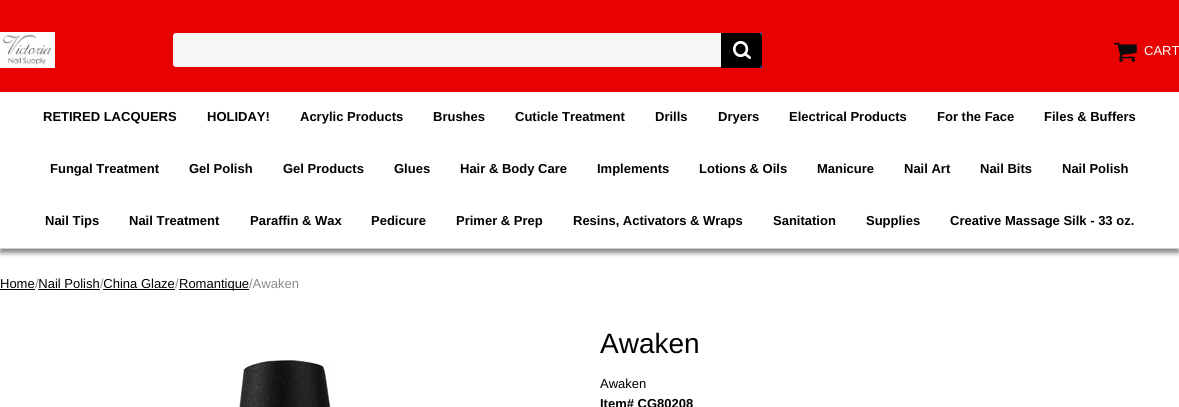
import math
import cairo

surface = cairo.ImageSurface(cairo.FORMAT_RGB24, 1179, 407)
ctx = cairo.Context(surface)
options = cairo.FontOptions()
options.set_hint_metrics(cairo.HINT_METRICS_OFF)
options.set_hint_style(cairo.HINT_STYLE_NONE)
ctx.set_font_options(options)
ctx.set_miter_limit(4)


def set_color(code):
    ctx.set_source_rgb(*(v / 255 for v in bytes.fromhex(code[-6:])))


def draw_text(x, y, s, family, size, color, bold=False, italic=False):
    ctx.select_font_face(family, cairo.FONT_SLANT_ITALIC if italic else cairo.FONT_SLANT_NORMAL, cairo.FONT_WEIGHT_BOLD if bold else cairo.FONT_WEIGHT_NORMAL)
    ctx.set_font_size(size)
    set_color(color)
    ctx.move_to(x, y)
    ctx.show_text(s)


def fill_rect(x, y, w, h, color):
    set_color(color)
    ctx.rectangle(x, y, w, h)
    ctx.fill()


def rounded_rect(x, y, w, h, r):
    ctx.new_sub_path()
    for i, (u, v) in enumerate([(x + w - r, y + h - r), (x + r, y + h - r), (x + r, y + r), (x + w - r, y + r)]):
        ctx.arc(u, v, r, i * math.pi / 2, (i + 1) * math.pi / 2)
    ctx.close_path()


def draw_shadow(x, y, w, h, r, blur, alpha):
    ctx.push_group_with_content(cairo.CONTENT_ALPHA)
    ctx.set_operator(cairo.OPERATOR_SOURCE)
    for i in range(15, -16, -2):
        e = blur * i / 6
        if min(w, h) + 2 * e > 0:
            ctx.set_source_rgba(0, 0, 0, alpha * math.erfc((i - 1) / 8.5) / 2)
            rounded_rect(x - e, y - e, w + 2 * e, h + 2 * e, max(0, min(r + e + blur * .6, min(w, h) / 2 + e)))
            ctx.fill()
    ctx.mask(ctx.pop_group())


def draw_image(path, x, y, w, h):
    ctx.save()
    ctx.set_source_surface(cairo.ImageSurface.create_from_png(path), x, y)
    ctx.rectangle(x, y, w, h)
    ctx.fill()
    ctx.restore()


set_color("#ffffff")
ctx.paint()
fill_rect(0, 0, 1179, 92, "#e80101")
draw_image("assets/img1.png", 0, 32, 55, 36)
set_color("#f7f7f7")
rounded_rect(173, 33, 589, 34, 3)
ctx.fill()
draw_image("assets/img2.png", 721, 33, 41, 35)
draw_image("assets/img3.png", 1114, 42, 23, 20)
draw_text(1144, 55, "CART", "Liberation Sans", 13, "#ffffff")
set_color("#000000")
draw_shadow(0, 96, 1179, 157, 0, 2.5, 0.48)
fill_rect(0, 92, 1179, 156, "#ffffff")
fill_rect(0, 248, 1179, 1, "#d0d0d0")
draw_text(43, 121, "RETIRED LACQUERS", "Liberation Sans", 13, "#000000", bold=True)
draw_text(207, 121, "HOLIDAY!", "Liberation Sans", 13, "#000000", bold=True)
draw_text(300, 121, "Acrylic Products", "Liberation Sans", 13, "#000000", bold=True)
draw_text(433, 121, "Brushes", "Liberation Sans", 13, "#000000", bold=True)
draw_text(515, 121, "Cuticle Treatment", "Liberation Sans", 13, "#000000", bold=True)
draw_text(655, 121, "Drills", "Liberation Sans", 13, "#000000", bold=True)
draw_text(718, 121, "Dryers", "Liberation Sans", 13, "#000000", bold=True)
draw_text(789, 121, "Electrical Products", "Liberation Sans", 13, "#000000", bold=True)
draw_text(937, 121, "For the Face", "Liberation Sans", 13, "#000000", bold=True)
draw_text(1044, 121, "Files & Buffers", "Liberation Sans", 13, "#000000", bold=True)
draw_text(50, 173, "Fungal Treatment", "Liberation Sans", 13, "#000000", bold=True)
draw_text(189, 173, "Gel Polish", "Liberation Sans", 13, "#000000", bold=True)
draw_text(283, 173, "Gel Products", "Liberation Sans", 13, "#000000", bold=True)
draw_text(394, 173, "Glues", "Liberation Sans", 13, "#000000", bold=True)
draw_text(460, 173, "Hair & Body Care", "Liberation Sans", 13, "#000000", bold=True)
draw_text(597, 173, "Implements", "Liberation Sans", 13, "#000000", bold=True)
draw_text(699, 173, "Lotions & Oils", "Liberation Sans", 13, "#000000", bold=True)
draw_text(817, 173, "Manicure", "Liberation Sans", 13, "#000000", bold=True)
draw_text(904, 173, "Nail Art", "Liberation Sans", 13, "#000000", bold=True)
draw_text(980, 173, "Nail Bits", "Liberation Sans", 13, "#000000", bold=True)
draw_text(1062, 173, "Nail Polish", "Liberation Sans", 13, "#000000", bold=True)
draw_text(45, 225, "Nail Tips", "Liberation Sans", 13, "#000000", bold=True)
draw_text(129, 225, "Nail Treatment", "Liberation Sans", 13, "#000000", bold=True)
draw_text(250, 225, "Paraffin & Wax", "Liberation Sans", 13, "#000000", bold=True)
draw_text(371, 225, "Pedicure", "Liberation Sans", 13, "#000000", bold=True)
draw_text(456, 225, "Primer & Prep", "Liberation Sans", 13, "#000000", bold=True)
draw_text(573, 225, "Resins, Activators & Wraps", "Liberation Sans", 13, "#000000", bold=True)
draw_text(773, 225, "Sanitation", "Liberation Sans", 13, "#000000", bold=True)
draw_text(866, 225, "Supplies", "Liberation Sans", 13, "#000000", bold=True)
draw_text(950, 225, "Creative Massage Silk - 33 oz.", "Liberation Sans", 13, "#000000", bold=True)
draw_text(0, 288, "Home Nail Polish China Glaze", "Liberation Sans", 13, "#000000")
fill_rect(0, 289, 35, 1, "#000000")
draw_text(35, 288, "/", "Liberation Sans", 13, "#8c8c8c")
draw_text(100, 288, "/", "Liberation Sans", 13, "#8c8c8c")
draw_text(175, 288, "/", "Liberation Sans", 13, "#8c8c8c")
fill_rect(179, 289, 70, 1, "#000000")
draw_text(179, 288, "Romantique", "Liberation Sans", 13, "#000000")
draw_text(249, 288, "/Awaken", "Liberation Sans", 13, "#8c8c8c")
fill_rect(38, 289, 62, 1, "#000000")
fill_rect(103, 289, 72, 1, "#000000")
draw_image("assets/img4.png", 239, 360, 92, 47)
draw_text(600, 353, "Awaken", "Liberation Sans", 28, "#000000")
draw_text(600, 388, "Awaken", "Liberation Sans", 13, "#000000")
draw_text(600, 408, "Item# CG80208", "Liberation Sans", 13, "#000000", bold=True)
surface.write_to_png("output.png")
